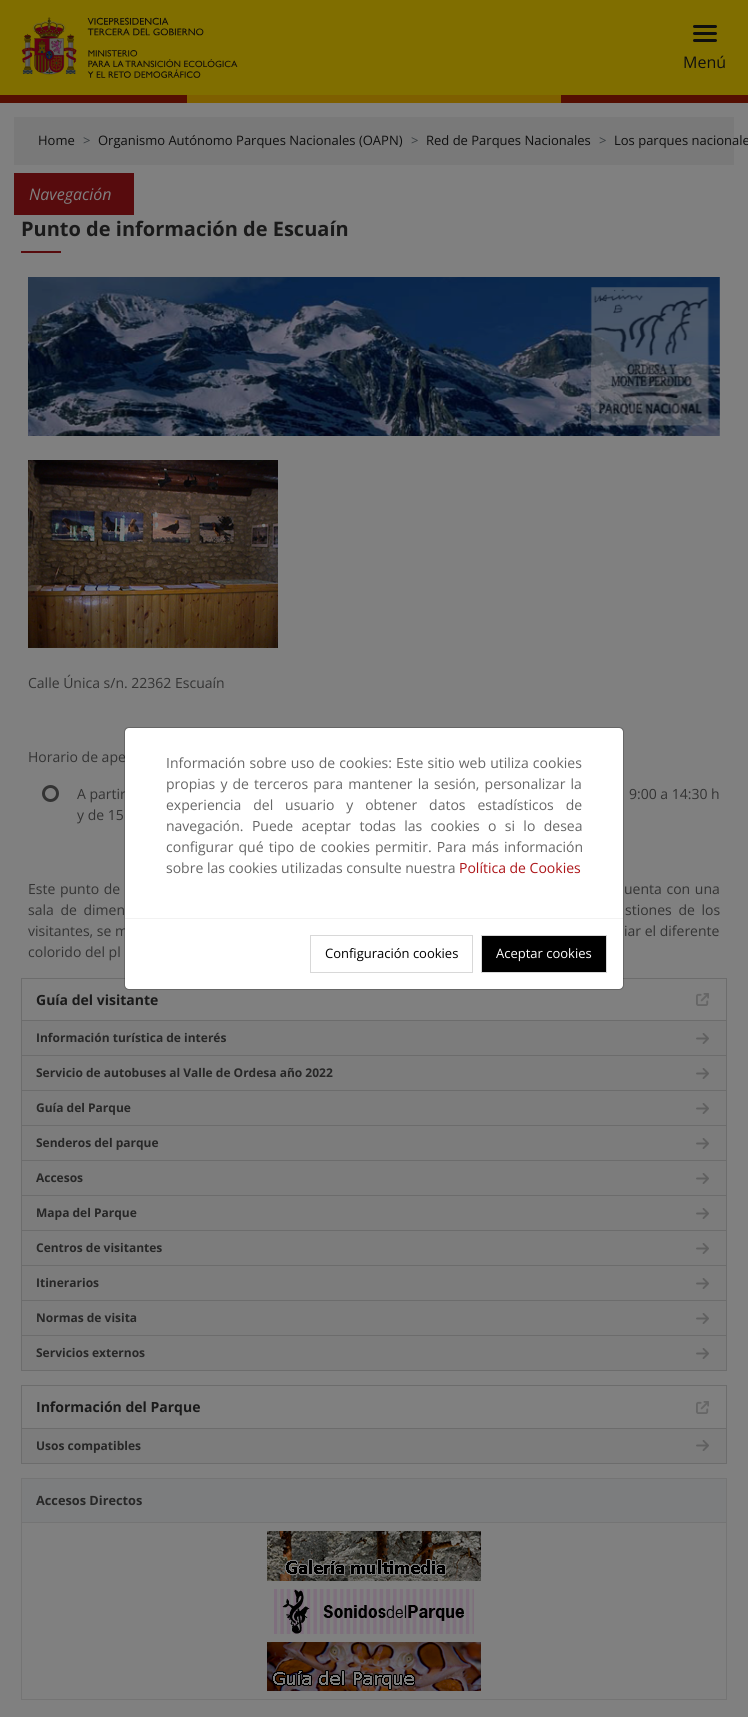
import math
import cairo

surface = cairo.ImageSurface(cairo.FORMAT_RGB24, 748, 1717)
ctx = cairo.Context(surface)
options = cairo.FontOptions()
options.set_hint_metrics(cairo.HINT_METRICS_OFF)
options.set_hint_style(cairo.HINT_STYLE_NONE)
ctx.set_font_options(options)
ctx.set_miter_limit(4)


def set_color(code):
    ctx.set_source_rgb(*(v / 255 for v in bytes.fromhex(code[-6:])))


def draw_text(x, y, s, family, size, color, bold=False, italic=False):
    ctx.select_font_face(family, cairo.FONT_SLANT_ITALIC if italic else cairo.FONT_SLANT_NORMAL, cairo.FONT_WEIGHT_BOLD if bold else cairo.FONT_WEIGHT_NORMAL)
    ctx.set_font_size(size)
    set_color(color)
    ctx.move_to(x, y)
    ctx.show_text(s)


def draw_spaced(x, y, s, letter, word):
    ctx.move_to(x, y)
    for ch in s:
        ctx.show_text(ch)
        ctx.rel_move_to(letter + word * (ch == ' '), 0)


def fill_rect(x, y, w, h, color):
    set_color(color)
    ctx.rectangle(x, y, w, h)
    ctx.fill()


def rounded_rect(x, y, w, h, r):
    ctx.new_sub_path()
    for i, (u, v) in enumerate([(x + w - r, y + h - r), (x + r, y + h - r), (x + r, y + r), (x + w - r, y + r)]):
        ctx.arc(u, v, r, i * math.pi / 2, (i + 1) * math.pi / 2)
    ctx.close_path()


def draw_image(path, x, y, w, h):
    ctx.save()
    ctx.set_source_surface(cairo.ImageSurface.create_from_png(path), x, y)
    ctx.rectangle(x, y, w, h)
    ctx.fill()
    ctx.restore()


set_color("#808080")
ctx.paint()
fill_rect(0, 0, 748, 95, "#806e00")
fill_rect(187, 95, 374, 8, "#7e5f00")
draw_image("assets/img1.png", 21, 17, 217, 61)
set_color("#0f0f0e")
rounded_rect(693, 25, 24, 3, 1.5)
ctx.fill()
rounded_rect(693, 32, 24, 3, 1.5)
ctx.fill()
rounded_rect(693, 39, 24, 3, 1.5)
ctx.fill()
draw_text(683, 68, "Menú", "Open Sans", 16, "#0f0f0f")
fill_rect(0, 95, 187, 8, "#540f02")
fill_rect(561, 95, 187, 8, "#540f02")
fill_rect(14, 117, 720, 48, "#797979")
draw_text(38, 145, "Home", "Open Sans", 13, "#0f0f0f")
draw_text(83, 145, ">", "Open Sans", 13, "#363b3f")
draw_text(98, 145, "Organismo Autónomo Parques Nacionales (OAPN)", "Open Sans", 13, "#0f0f0f")
draw_text(411, 145, ">", "Open Sans", 13, "#363b3f")
draw_text(426, 145, "Red de Parques Nacionales", "Open Sans", 13, "#0f0f0f")
draw_text(599, 145, ">", "Open Sans", 13, "#363b3f")
draw_text(614, 145, "Los parques nacionale", "Open Sans", 13, "#0f0f0f")
fill_rect(14, 173, 120, 42, "#570b0d")
draw_text(29, 200, "Navegación", "Open Sans", 16, "#808080", italic=True)
draw_text(21, 236, "Punto de información de Escuaín", "Open Sans", 20, "#1a1a1a", bold=True)
fill_rect(21, 251, 40, 2, "#570b0d")
draw_image("assets/img2.png", 28, 277, 692, 159)
draw_image("assets/img3.png", 28, 460, 250, 188)
draw_text(28, 688, "Calle Única s/n. 22362 Escuaín", "Open Sans", 14, "#333333")
draw_text(28, 762, "Horario de ape", "Open Sans", 14, "#333333")
ctx.new_path()
ctx.arc(50.5, 793.5, 7, 0, 2 * math.pi)
ctx.set_line_width(3)
ctx.stroke()
draw_text(77, 799, "A partir", "Open Sans", 14, "#333333")
draw_text(629, 799, "9:00 a 14:30 h", "Open Sans", 14, "#333333")
draw_text(77, 820, "y de 15", "Open Sans", 14, "#333333")
draw_spaced(28, 894, "Este punto de", 0, 1)
draw_spaced(624, 894, "uenta con una", 0, 1)
draw_spaced(28, 915, "sala de dimen", 0, 3)
draw_spaced(625, 915, "stiones de los", 0, 3)
draw_text(28, 936, "visitantes, se m", "Open Sans", 14, "#333333")
draw_text(624, 936, "iar el diferente", "Open Sans", 14, "#333333")
draw_text(28, 957, "colorido del pl", "Open Sans", 14, "#333333")
fill_rect(22, 1021, 704, 349, "#7c7c7c")
fill_rect(21, 978, 706, 1, "#6c6c6c")
fill_rect(726, 978, 1, 393, "#6c6c6c")
fill_rect(21, 978, 1, 393, "#6c6c6c")
fill_rect(22, 1020, 704, 1, "#6c6c6c")
draw_text(36, 1005, "Guía del visitante", "Open Sans", 14, "#1a1a1a", bold=True)
draw_image("assets/img4.png", 696, 993, 13, 13)
fill_rect(22, 1055, 704, 1, "#6c6c6c")
draw_text(36, 1042, "Información turística de interés", "Open Sans", 12, "#272727", bold=True)
draw_image("assets/img5.png", 696, 1033, 13, 11)
fill_rect(22, 1090, 704, 1, "#6c6c6c")
draw_text(36, 1077, "Servicio de autobuses al Valle de Ordesa año 2022", "Open Sans", 12, "#272727", bold=True)
draw_image("assets/img5.png", 696, 1068, 13, 11)
fill_rect(22, 1125, 704, 1, "#6c6c6c")
draw_text(36, 1112, "Guía del Parque", "Open Sans", 12, "#272727", bold=True)
draw_image("assets/img5.png", 696, 1103, 13, 11)
fill_rect(22, 1160, 704, 1, "#6c6c6c")
draw_text(36, 1147, "Senderos del parque", "Open Sans", 12, "#272727", bold=True)
draw_image("assets/img5.png", 696, 1138, 13, 11)
fill_rect(22, 1195, 704, 1, "#6c6c6c")
draw_text(36, 1182, "Accesos", "Open Sans", 12, "#272727", bold=True)
draw_image("assets/img5.png", 696, 1173, 13, 11)
fill_rect(22, 1230, 704, 1, "#6c6c6c")
draw_text(36, 1217, "Mapa del Parque", "Open Sans", 12, "#272727", bold=True)
draw_image("assets/img5.png", 696, 1208, 13, 11)
fill_rect(22, 1265, 704, 1, "#6c6c6c")
draw_text(36, 1252, "Centros de visitantes", "Open Sans", 12, "#272727", bold=True)
draw_image("assets/img5.png", 696, 1243, 13, 11)
fill_rect(22, 1300, 704, 1, "#6c6c6c")
draw_text(36, 1287, "Itinerarios", "Open Sans", 12, "#272727", bold=True)
draw_image("assets/img5.png", 696, 1278, 13, 11)
fill_rect(22, 1335, 704, 1, "#6c6c6c")
draw_text(36, 1322, "Normas de visita", "Open Sans", 12, "#272727", bold=True)
draw_image("assets/img5.png", 696, 1313, 13, 11)
fill_rect(22, 1370, 704, 1, "#6c6c6c")
draw_text(36, 1357, "Servicios externos", "Open Sans", 12, "#272727", bold=True)
draw_image("assets/img5.png", 696, 1348, 13, 11)
fill_rect(22, 1429, 704, 34, "#7c7c7c")
fill_rect(21, 1385, 706, 1, "#6c6c6c")
fill_rect(726, 1385, 1, 79, "#6c6c6c")
fill_rect(21, 1385, 1, 79, "#6c6c6c")
fill_rect(22, 1428, 704, 1, "#6c6c6c")
draw_text(36, 1412, "Información del Parque", "Open Sans", 14, "#1a1a1a", bold=True)
draw_image("assets/img4.png", 696, 1401, 13, 13)
fill_rect(22, 1463, 704, 1, "#6c6c6c")
draw_text(36, 1450, "Usos compatibles", "Open Sans", 12, "#272727", bold=True)
draw_image("assets/img5.png", 696, 1440, 13, 11)
ctx.rectangle(21.5, 1478.5, 705, 221)
set_color("#747474")
ctx.set_line_width(1)
ctx.stroke()
fill_rect(22, 1479, 704, 43, "#7c7d7e")
fill_rect(22, 1522, 704, 1, "#747474")
draw_text(36, 1505, "Accesos Directos", "Open Sans", 12.75, "#272727", bold=True)
draw_image("assets/img6.png", 267, 1531, 214, 50)
draw_image("assets/img7.png", 274, 1589, 200, 45)
draw_image("assets/img8.png", 267, 1642, 214, 49)
set_color("#ffffff")
rounded_rect(125, 728, 498, 261, 4)
ctx.fill()
rounded_rect(124.5, 727.5, 499, 262, 4.5)
ctx.set_source_rgba(0, 0, 0, 0.2)
ctx.stroke()
ctx.select_font_face("Open Sans")
ctx.set_font_size(14)
set_color("#666666")
draw_spaced(166, 768, "Información sobre uso de cookies: Este sitio web utiliza cookies", 0, 0.5)
draw_spaced(166, 789, "propias y de terceros para mantener la sesión, personalizar la", 0, 1.5)
draw_spaced(166, 810, "experiencia del usuario y obtener datos estadísticos de", 0, 8.25)
draw_spaced(166, 831, "navegación. Puede aceptar todas las cookies o si lo desea", 0, 4.75)
draw_spaced(166, 852, "configurar qué tipo de cookies permitir. Para más información", 0, 1.5)
draw_text(166, 873, "sobre las cookies utilizadas consulte nuestra", "Open Sans", 14, "#666666")
draw_text(459, 873, "Política de Cookies", "Open Sans", 14, "#ad1519")
fill_rect(125, 918, 498, 1, "#f2f2f2")
ctx.rectangle(310.5, 935.5, 162, 37)
set_color("#d8d8d8")
ctx.stroke()
draw_text(325, 958, "Configuración cookies", "Open Sans", 13, "#000000")
ctx.rectangle(481.5, 935.5, 125, 37)
ctx.fill_preserve()
set_color("#d8d8d8")
ctx.stroke()
draw_text(496, 958, "Aceptar cookies", "Open Sans", 13, "#ffffff")
surface.write_to_png("output.png")
